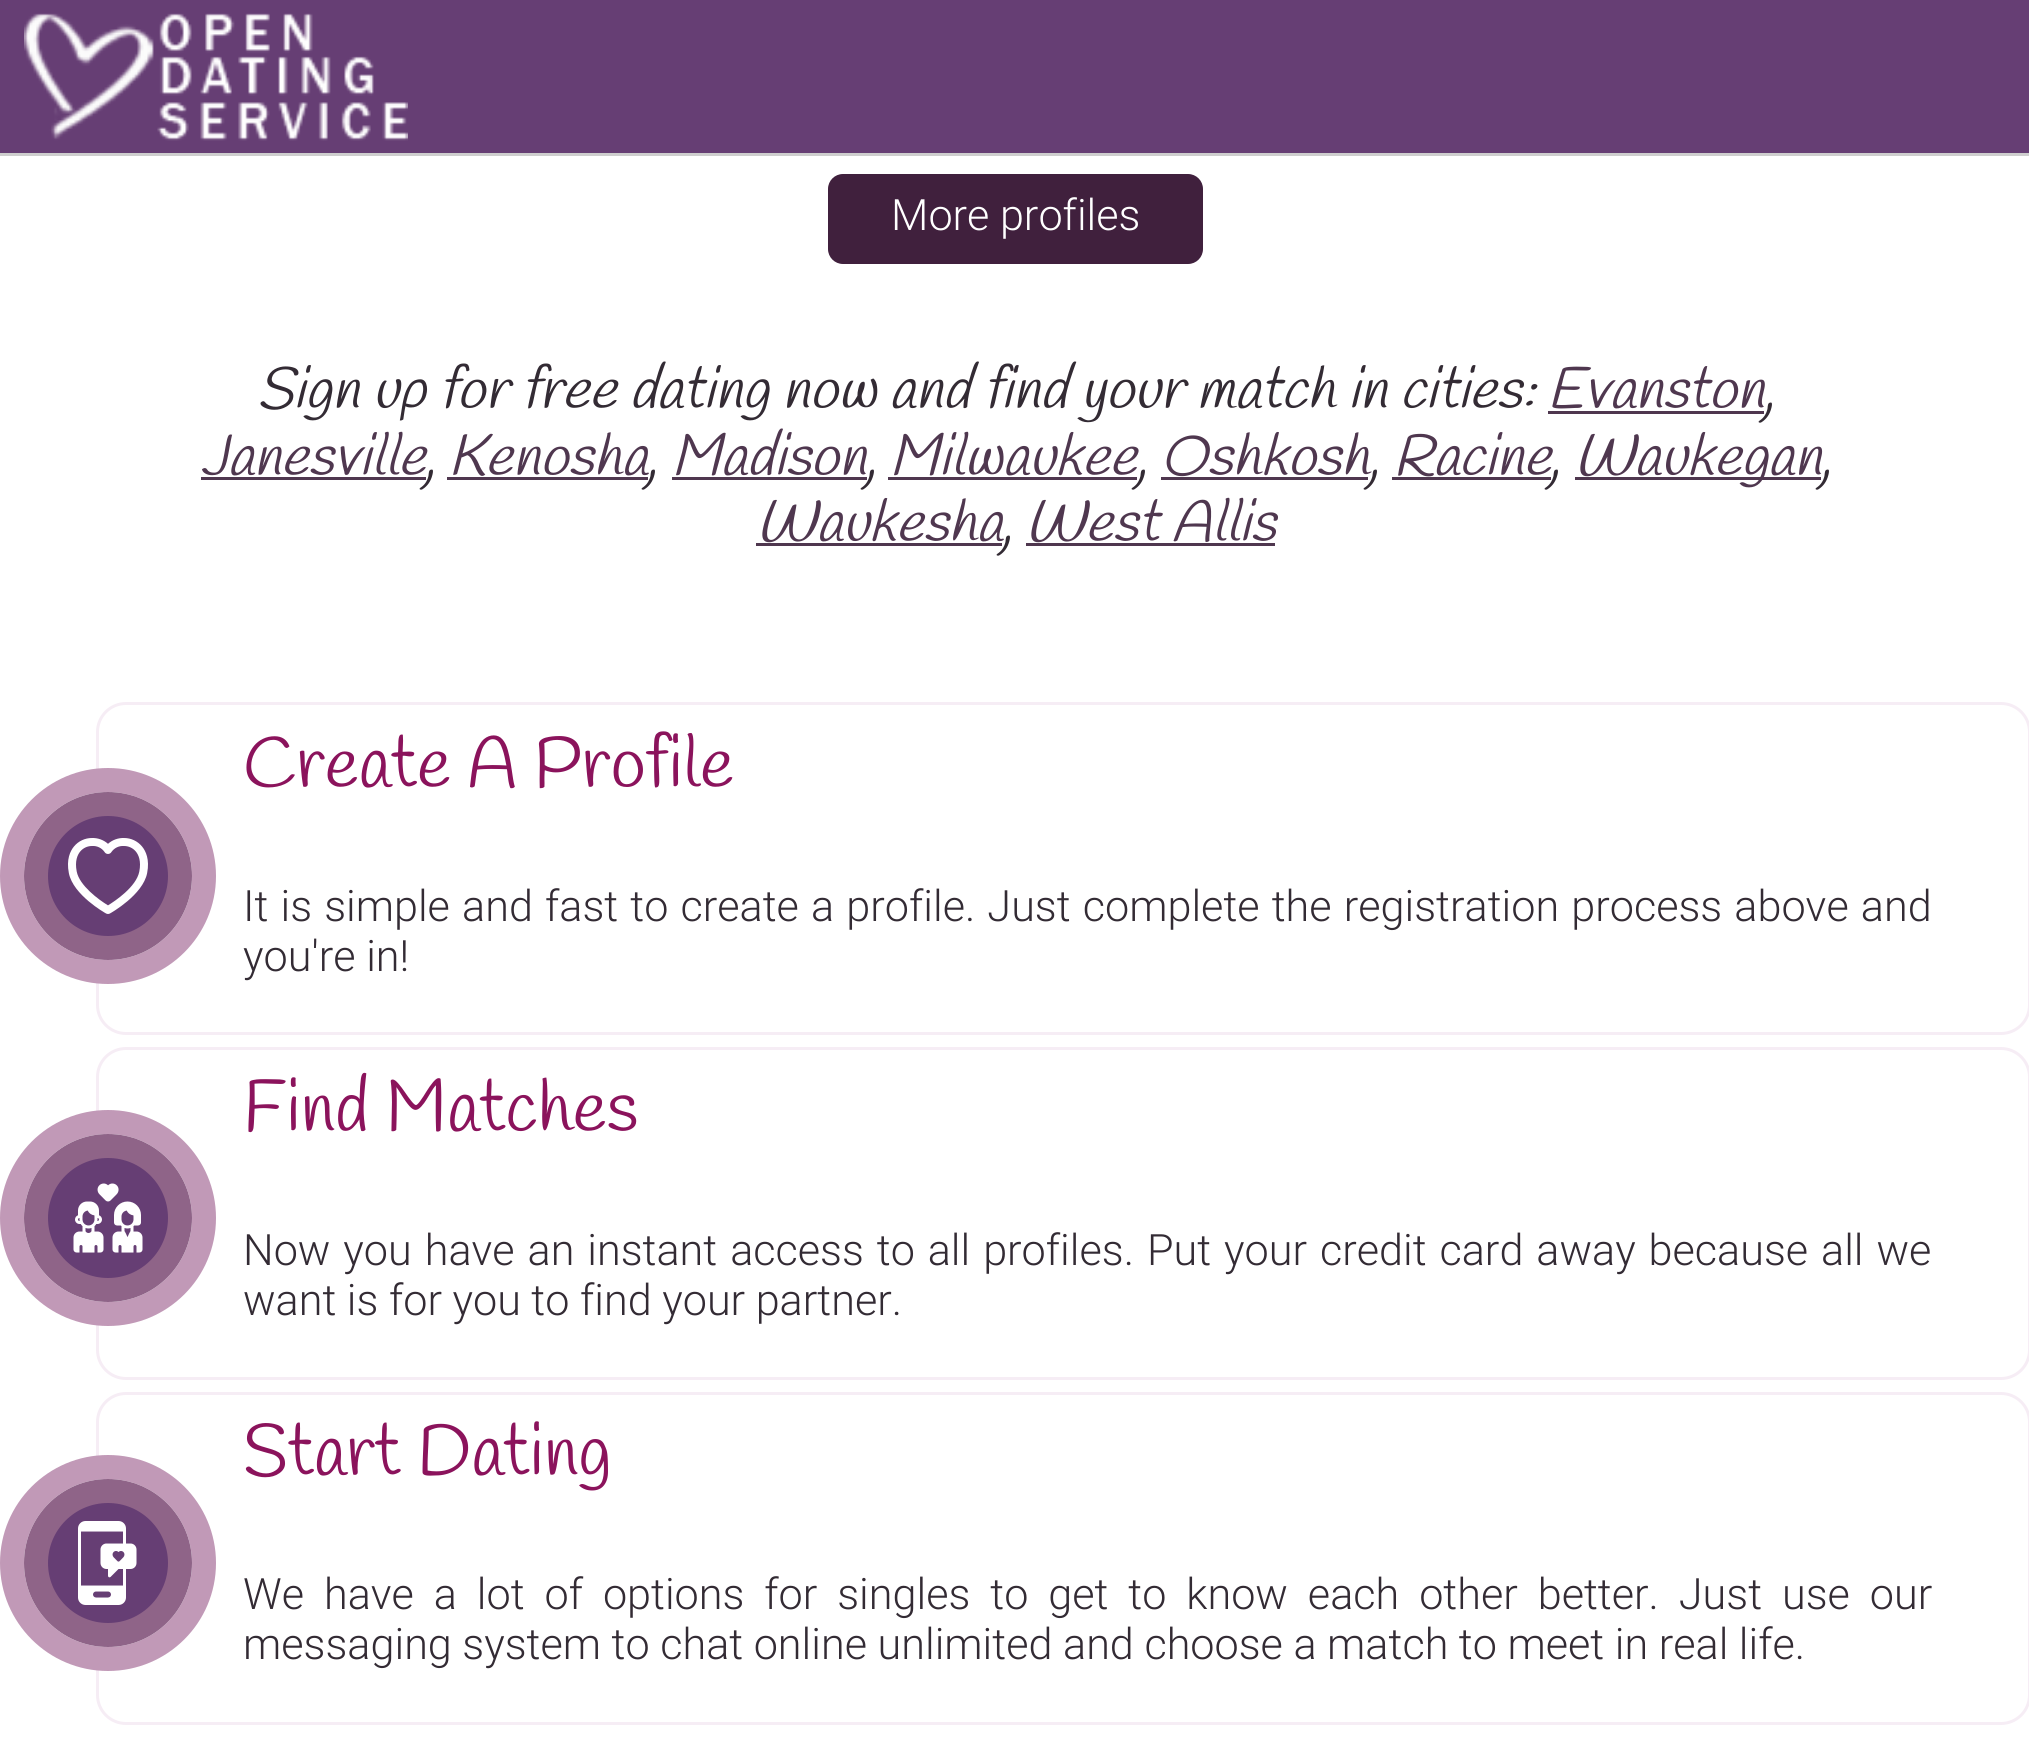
import math
import cairo

surface = cairo.ImageSurface(cairo.FORMAT_RGB24, 2029, 1744)
ctx = cairo.Context(surface)
options = cairo.FontOptions()
options.set_hint_metrics(cairo.HINT_METRICS_OFF)
options.set_hint_style(cairo.HINT_STYLE_NONE)
ctx.set_font_options(options)
ctx.set_miter_limit(4)


def set_color(code):
    ctx.set_source_rgb(*(v / 255 for v in bytes.fromhex(code[-6:])))


def draw_text(x, y, s, family, size, color, bold=False, italic=False):
    ctx.select_font_face(family, cairo.FONT_SLANT_ITALIC if italic else cairo.FONT_SLANT_NORMAL, cairo.FONT_WEIGHT_BOLD if bold else cairo.FONT_WEIGHT_NORMAL)
    ctx.set_font_size(size)
    set_color(color)
    ctx.move_to(x, y)
    ctx.show_text(s)


def draw_spaced(x, y, s, letter, word):
    ctx.move_to(x, y)
    for ch in s:
        ctx.show_text(ch)
        ctx.rel_move_to(letter + word * (ch == ' '), 0)


def fill_rect(x, y, w, h, color):
    set_color(color)
    ctx.rectangle(x, y, w, h)
    ctx.fill()


def rounded_rect(x, y, w, h, r):
    ctx.new_sub_path()
    for i, (u, v) in enumerate([(x + w - r, y + h - r), (x + r, y + h - r), (x + r, y + r), (x + w - r, y + r)]):
        ctx.arc(u, v, r, i * math.pi / 2, (i + 1) * math.pi / 2)
    ctx.close_path()


def draw_image(path, x, y, w, h):
    ctx.save()
    ctx.set_source_surface(cairo.ImageSurface.create_from_png(path), x, y)
    ctx.rectangle(x, y, w, h)
    ctx.fill()
    ctx.restore()


set_color("#ffffff")
ctx.paint()
fill_rect(0, 0, 2029, 153, "#663e74")
fill_rect(0, 153, 2029, 3, "#cecece")
draw_image("assets/img1.png", 24, 13, 384, 128)
set_color("#40203d")
rounded_rect(828, 174, 375, 90, 15)
ctx.fill()
draw_text(891, 230, "More profiles", "Roboto Light", 43.2, "#ffffff")
draw_text(257, 408, "Sign up for free dating now and find your match in cities:", "Handlee", 57.6, "#332b34", italic=True)
draw_text(1547, 408, "Evanston", "Handlee", 57.6, "#4f374f", italic=True)
fill_rect(1548, 411, 216, 3, "#4f374f")
draw_text(1764, 408, ",", "Handlee", 57.6, "#332b34", italic=True)
draw_text(200, 475, "Janesville", "Handlee", 57.6, "#4f374f", italic=True)
fill_rect(201, 477, 225, 3, "#4f374f")
draw_text(448, 475, "Kenosha", "Handlee", 57.6, "#4f374f", italic=True)
fill_rect(447, 477, 201, 3, "#4f374f")
draw_text(671, 475, "Madison", "Handlee", 57.6, "#4f374f", italic=True)
fill_rect(672, 477, 195, 3, "#4f374f")
draw_text(889, 475, "Milwaukee", "Handlee", 57.6, "#4f374f", italic=True)
fill_rect(888, 477, 249, 3, "#4f374f")
draw_text(1160, 475, "Oshkosh", "Handlee", 57.6, "#4f374f", italic=True)
fill_rect(1161, 477, 207, 3, "#4f374f")
draw_text(1393, 475, "Racine", "Handlee", 57.6, "#4f374f", italic=True)
fill_rect(1392, 477, 159, 3, "#4f374f")
fill_rect(1575, 477, 246, 3, "#4f374f")
draw_text(1574, 475, "Waukegan", "Handlee", 57.6, "#4f374f", italic=True)
draw_text(425, 475, ",", "Handlee", 57.6, "#332b34", italic=True)
draw_text(647, 475, ",", "Handlee", 57.6, "#332b34", italic=True)
draw_text(866, 475, ",", "Handlee", 57.6, "#332b34", italic=True)
draw_text(1137, 475, ",", "Handlee", 57.6, "#332b34", italic=True)
draw_text(1369, 475, ",", "Handlee", 57.6, "#332b34", italic=True)
draw_text(1550, 475, ",", "Handlee", 57.6, "#332b34", italic=True)
draw_text(1821, 475, ",", "Handlee", 57.6, "#332b34", italic=True)
draw_text(756, 541, "Waukesha", "Handlee", 57.6, "#4f374f", italic=True)
fill_rect(756, 543, 246, 3, "#4f374f")
draw_text(1025, 541, "West Allis", "Handlee", 57.6, "#4f374f", italic=True)
fill_rect(1026, 543, 249, 3, "#4f374f")
draw_text(1002, 541, ",", "Handlee", 57.6, "#332b34", italic=True)
rounded_rect(97.5, 703.5, 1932, 330, 28.5)
set_color("#f6edf5")
ctx.set_line_width(3)
ctx.stroke()
ctx.arc(108, 876, 96, 0, 2 * math.pi)
set_color("#c199b7")
ctx.set_line_width(24)
ctx.stroke()
set_color("#663e74")
ctx.arc(108, 876, 72, 0, 2 * math.pi)
ctx.fill_preserve()
set_color("#8f6488")
ctx.stroke()
draw_image("assets/img2.png", 68, 838, 80, 76)
draw_text(243, 787, "Create A Profile", "Handlee", 72, "#8b135c")
ctx.select_font_face("Roboto Light")
ctx.set_font_size(43.2)
set_color("#332b34")
draw_spaced(243, 921, "It is simple and fast to create a profile. Just complete the registration process above and", 0, 1.6)
draw_text(243, 971, "you're in!", "Roboto Light", 43.2, "#332b34")
rounded_rect(97.5, 1048.5, 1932, 330, 28.5)
set_color("#f6edf5")
ctx.set_line_width(3)
ctx.stroke()
ctx.arc(108, 1218, 96, 0, 2 * math.pi)
set_color("#c199b7")
ctx.set_line_width(24)
ctx.stroke()
set_color("#663e74")
ctx.arc(108, 1218, 72, 0, 2 * math.pi)
ctx.fill_preserve()
set_color("#8f6488")
ctx.stroke()
draw_image("assets/img3.png", 73, 1183, 70, 70)
draw_text(243, 1131, "Find Matches", "Handlee", 72, "#8b135c")
ctx.select_font_face("Roboto Light")
ctx.set_font_size(43.2)
set_color("#332b34")
draw_spaced(243, 1265, "Now you have an instant access to all profiles. Put your credit card away because all we", 0, 2.4)
draw_text(243, 1315, "want is for you to find your partner.", "Roboto Light", 43.2, "#332b34")
rounded_rect(97.5, 1393.5, 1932, 330, 28.5)
set_color("#f6edf5")
ctx.set_line_width(3)
ctx.stroke()
ctx.arc(108, 1563, 96, 0, 2 * math.pi)
set_color("#c199b7")
ctx.set_line_width(24)
ctx.stroke()
set_color("#663e74")
ctx.arc(108, 1563, 72, 0, 2 * math.pi)
ctx.fill_preserve()
set_color("#8f6488")
ctx.stroke()
draw_image("assets/img4.png", 78, 1521, 59, 84)
draw_text(243, 1475, "Start Dating", "Handlee", 72, "#8b135c")
ctx.select_font_face("Roboto Light")
ctx.set_font_size(43.2)
set_color("#332b34")
draw_spaced(243, 1609, "We have a lot of options for singles to get to know each other better. Just use our", 0, 9.4)
draw_text(243, 1659, "messaging system to chat online unlimited and choose a match to meet in real life.", "Roboto Light", 43.2, "#332b34")
surface.write_to_png("output.png")
